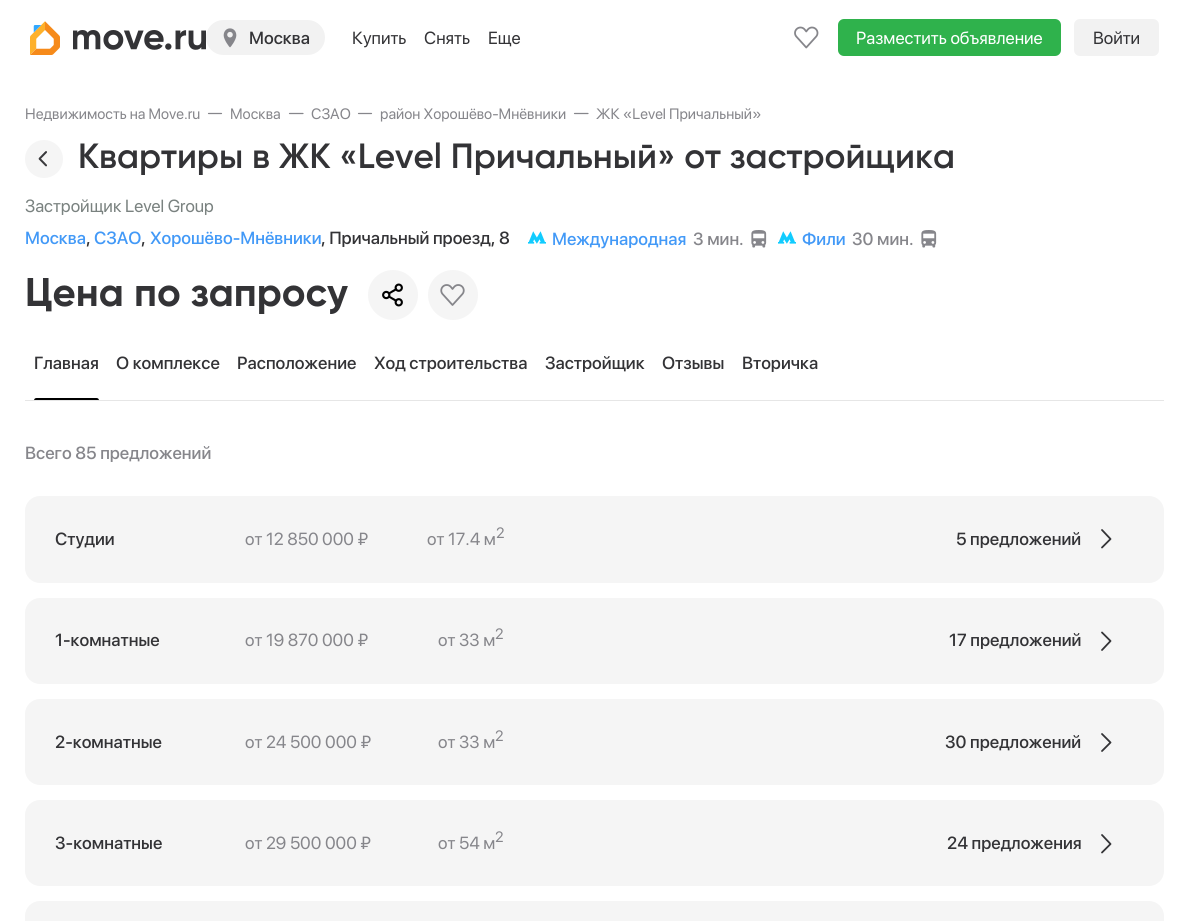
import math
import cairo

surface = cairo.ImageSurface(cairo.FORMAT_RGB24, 1188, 921)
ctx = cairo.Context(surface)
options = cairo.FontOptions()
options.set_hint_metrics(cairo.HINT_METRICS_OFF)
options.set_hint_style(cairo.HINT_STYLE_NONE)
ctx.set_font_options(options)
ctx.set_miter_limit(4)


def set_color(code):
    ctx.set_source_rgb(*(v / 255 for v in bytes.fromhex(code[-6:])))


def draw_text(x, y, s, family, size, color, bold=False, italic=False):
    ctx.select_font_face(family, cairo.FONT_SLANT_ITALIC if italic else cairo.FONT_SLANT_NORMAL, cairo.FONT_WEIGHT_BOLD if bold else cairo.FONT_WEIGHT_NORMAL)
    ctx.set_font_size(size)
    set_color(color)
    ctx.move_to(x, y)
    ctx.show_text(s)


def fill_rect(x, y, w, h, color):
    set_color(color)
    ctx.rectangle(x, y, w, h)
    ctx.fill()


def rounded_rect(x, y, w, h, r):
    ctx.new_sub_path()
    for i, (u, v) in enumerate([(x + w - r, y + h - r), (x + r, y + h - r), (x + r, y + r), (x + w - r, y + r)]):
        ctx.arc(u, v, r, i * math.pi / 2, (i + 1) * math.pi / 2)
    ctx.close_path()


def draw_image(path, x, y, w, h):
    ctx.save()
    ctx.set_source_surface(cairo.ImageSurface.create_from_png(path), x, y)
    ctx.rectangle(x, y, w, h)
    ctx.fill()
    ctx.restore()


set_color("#ffffff")
ctx.paint()
draw_image("assets/img1.png", 30, 21, 30, 34)
draw_image("assets/img2.png", 73, 30, 133, 20)
set_color("#f2f2f2")
rounded_rect(206, 20, 119, 35, 17.5)
ctx.fill()
draw_image("assets/img3.png", 223, 28, 14, 20)
draw_text(249, 44, "Москва", "SF Pro Display Medium", 17.5, "#333336")
draw_text(352, 44, "Купить", "SF Pro Display", 17.5, "#333336")
draw_text(424, 44, "Снять", "SF Pro Display", 17.5, "#333336")
draw_text(488, 44, "Еще", "SF Pro Display", 17.5, "#333336")
draw_image("assets/img4.png", 794, 26, 25, 23)
set_color("#2fb24c")
rounded_rect(838, 19, 223, 37, 6)
ctx.fill()
draw_text(856, 44, "Разместить объявление", "SF Pro Display", 17.5, "#ffffff")
set_color("#f2f2f2")
rounded_rect(1074, 19, 85, 37, 6)
ctx.fill()
draw_text(1093, 44, "Войти", "SF Pro Display", 17.5, "#333336")
draw_text(25, 119, "Недвижимость на Move.ru", "SF Pro Display", 15, "#86868b")
ctx.new_path()
ctx.move_to(208.5, 113.5)
ctx.line_to(221.5, 113.5)
ctx.set_line_width(1.2)
ctx.set_line_cap(cairo.LINE_CAP_ROUND)
ctx.stroke()
draw_text(230, 119, "Москва", "SF Pro Display", 15, "#86868b")
ctx.new_path()
ctx.move_to(289.5, 113.5)
ctx.line_to(303, 113.5)
ctx.stroke()
draw_text(311, 119, "СЗАО", "SF Pro Display", 15, "#86868b")
ctx.new_path()
ctx.move_to(358.5, 113.5)
ctx.line_to(371.5, 113.5)
ctx.stroke()
draw_text(380, 119, "район Хорошёво-Мнёвники", "SF Pro Display", 15, "#86868b")
ctx.new_path()
ctx.move_to(574.5, 113.5)
ctx.line_to(588, 113.5)
ctx.stroke()
draw_text(596, 119, "ЖК «Level Причальный»", "SF Pro Display", 15, "#86868b")
set_color("#f5f5f5")
ctx.new_path()
ctx.arc(44, 159, 19, 0, 2 * math.pi)
ctx.fill()
draw_image("assets/img5.png", 38, 151, 9, 16)
draw_text(78, 168, "Квартиры в ЖК «Level Причальный» от застройщика", "Gilroy SemiBold", 35, "#333336")
draw_text(25, 212, "Застройщик Level Group", "SF Pro Display", 17.5, "#7a8280")
draw_text(25, 244, "Москва", "SF Pro Display Medium", 17.5, "#4299f7")
draw_text(86, 244, ",", "SF Pro Display Medium", 17.5, "#333336")
draw_text(94, 244, "СЗАО", "SF Pro Display Medium", 17.5, "#4299f7")
draw_text(141, 244, ",", "SF Pro Display Medium", 17.5, "#333336")
draw_text(150, 244, "Хорошёво-Мнёвники", "SF Pro Display Medium", 17.5, "#4299f7")
draw_text(321, 244, ", Причальный проезд, 8", "SF Pro Display Medium", 17.5, "#333336")
draw_image("assets/img6.png", 528, 231, 18, 13)
draw_text(552, 245, "Международная", "SF Pro Display Medium", 17.5, "#4299f7")
draw_text(693, 245, "3 мин.", "SF Pro Display Medium", 17.5, "#86868b")
draw_image("assets/img7.png", 751, 230, 16, 18)
draw_image("assets/img6.png", 778, 231, 18, 13)
draw_text(802, 245, "Фили", "SF Pro Display Medium", 17.5, "#4299f7")
draw_text(852, 245, "30 мин.", "SF Pro Display Medium", 17.5, "#86868b")
draw_image("assets/img7.png", 921, 230, 16, 18)
draw_text(25, 306, "Цена по запросу", "Gilroy", 40, "#333336", bold=True)
set_color("#f5f5f5")
ctx.new_path()
ctx.arc(393, 295, 25, 0, 2 * math.pi)
ctx.fill()
draw_image("assets/img8.png", 382, 283, 21, 24)
ctx.arc(453, 295, 25, 0, 2 * math.pi)
ctx.fill()
draw_image("assets/img9.png", 440, 284, 25, 22)
fill_rect(25, 400, 1139, 1, "#e6e6e6")
draw_text(34, 369, "Главная", "SF Pro Display Medium", 17.5, "#333336")
set_color("#000000")
ctx.new_path()
ctx.move_to(36.5, 398)
ctx.line_to(96.5, 398)
ctx.curve_to(98, 398, 99, 399, 99, 400.5)
ctx.line_to(99, 400)
ctx.line_to(34, 400)
ctx.line_to(34, 400.5)
ctx.curve_to(34, 399, 35, 398, 36.5, 398)
ctx.close_path()
ctx.fill()
draw_text(116, 369, "О комплексе", "SF Pro Display Medium", 17.5, "#333336")
draw_text(237, 369, "Расположение", "SF Pro Display Medium", 17.5, "#333336")
draw_text(374, 369, "Ход строительства", "SF Pro Display Medium", 17.5, "#333336")
draw_text(545, 369, "Застройщик", "SF Pro Display Medium", 17.5, "#333336")
draw_text(662, 369, "Отзывы", "SF Pro Display Medium", 17.5, "#333336")
draw_text(742, 369, "Вторичка", "SF Pro Display Medium", 17.5, "#333336")
draw_text(25, 459, "Всего 85 предложений", "SF Pro Display Medium", 17.5, "#86868b")
set_color("#f5f5f5")
rounded_rect(25, 496, 1139, 87, 15)
ctx.fill()
draw_text(55, 545, "Студии", "SF Pro Display Medium", 17.5, "#333336")
draw_text(245, 545, "от 12 850 000 ₽", "SF Pro Display", 17.5, "#86868b")
draw_text(427, 545, "от 17.4 м", "SF Pro Display", 17.5, "#86868b")
draw_text(496, 538, "2", "SF Pro Display", 15, "#86868b")
draw_text(956, 545, "5 предложений", "SF Pro Display Medium", 17.5, "#333336")
ctx.new_path()
ctx.move_to(1102, 547.5)
ctx.line_to(1110.5, 539)
ctx.line_to(1102, 530)
ctx.set_line_width(1.8)
ctx.set_line_join(cairo.LINE_JOIN_ROUND)
ctx.stroke()
set_color("#f5f5f5")
rounded_rect(25, 598, 1139, 86, 15)
ctx.fill()
draw_text(55, 646, "1-комнатные", "SF Pro Display Medium", 17.5, "#333336")
draw_text(245, 646, "от 19 870 000 ₽", "SF Pro Display", 17.5, "#86868b")
draw_text(438, 646, "от 33 м", "SF Pro Display", 17.5, "#86868b")
draw_text(495, 639, "2", "SF Pro Display", 15, "#86868b")
draw_text(949, 646, "17 предложений", "SF Pro Display Medium", 17.5, "#333336")
ctx.new_path()
ctx.move_to(1102, 650)
ctx.line_to(1110.5, 641)
ctx.line_to(1102, 632.5)
ctx.stroke()
set_color("#f5f5f5")
rounded_rect(25, 699, 1139, 86, 15)
ctx.fill()
draw_text(55, 748, "2-комнатные", "SF Pro Display Medium", 17.5, "#333336")
draw_text(245, 748, "от 24 500 000 ₽", "SF Pro Display", 17.5, "#86868b")
draw_text(438, 748, "от 33 м", "SF Pro Display", 17.5, "#86868b")
draw_text(495, 741, "2", "SF Pro Display", 15, "#86868b")
draw_text(945, 748, "30 предложений", "SF Pro Display Medium", 17.5, "#333336")
ctx.new_path()
ctx.move_to(1102, 751)
ctx.line_to(1110.5, 742.5)
ctx.line_to(1102, 734)
ctx.stroke()
set_color("#f5f5f5")
rounded_rect(25, 800, 1139, 86, 15)
ctx.fill()
draw_text(55, 849, "3-комнатные", "SF Pro Display Medium", 17.5, "#333336")
draw_text(245, 849, "от 29 500 000 ₽", "SF Pro Display", 17.5, "#86868b")
draw_text(438, 849, "от 54 м", "SF Pro Display", 17.5, "#86868b")
draw_text(495, 842, "2", "SF Pro Display", 15, "#86868b")
draw_text(947, 849, "24 предложения", "SF Pro Display Medium", 17.5, "#333336")
ctx.new_path()
ctx.move_to(1102, 852.5)
ctx.line_to(1110.5, 844)
ctx.line_to(1102, 835)
ctx.stroke()
set_color("#f5f5f5")
rounded_rect(25, 901, 1139, 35, 15)
ctx.fill()
surface.write_to_png("output.png")
